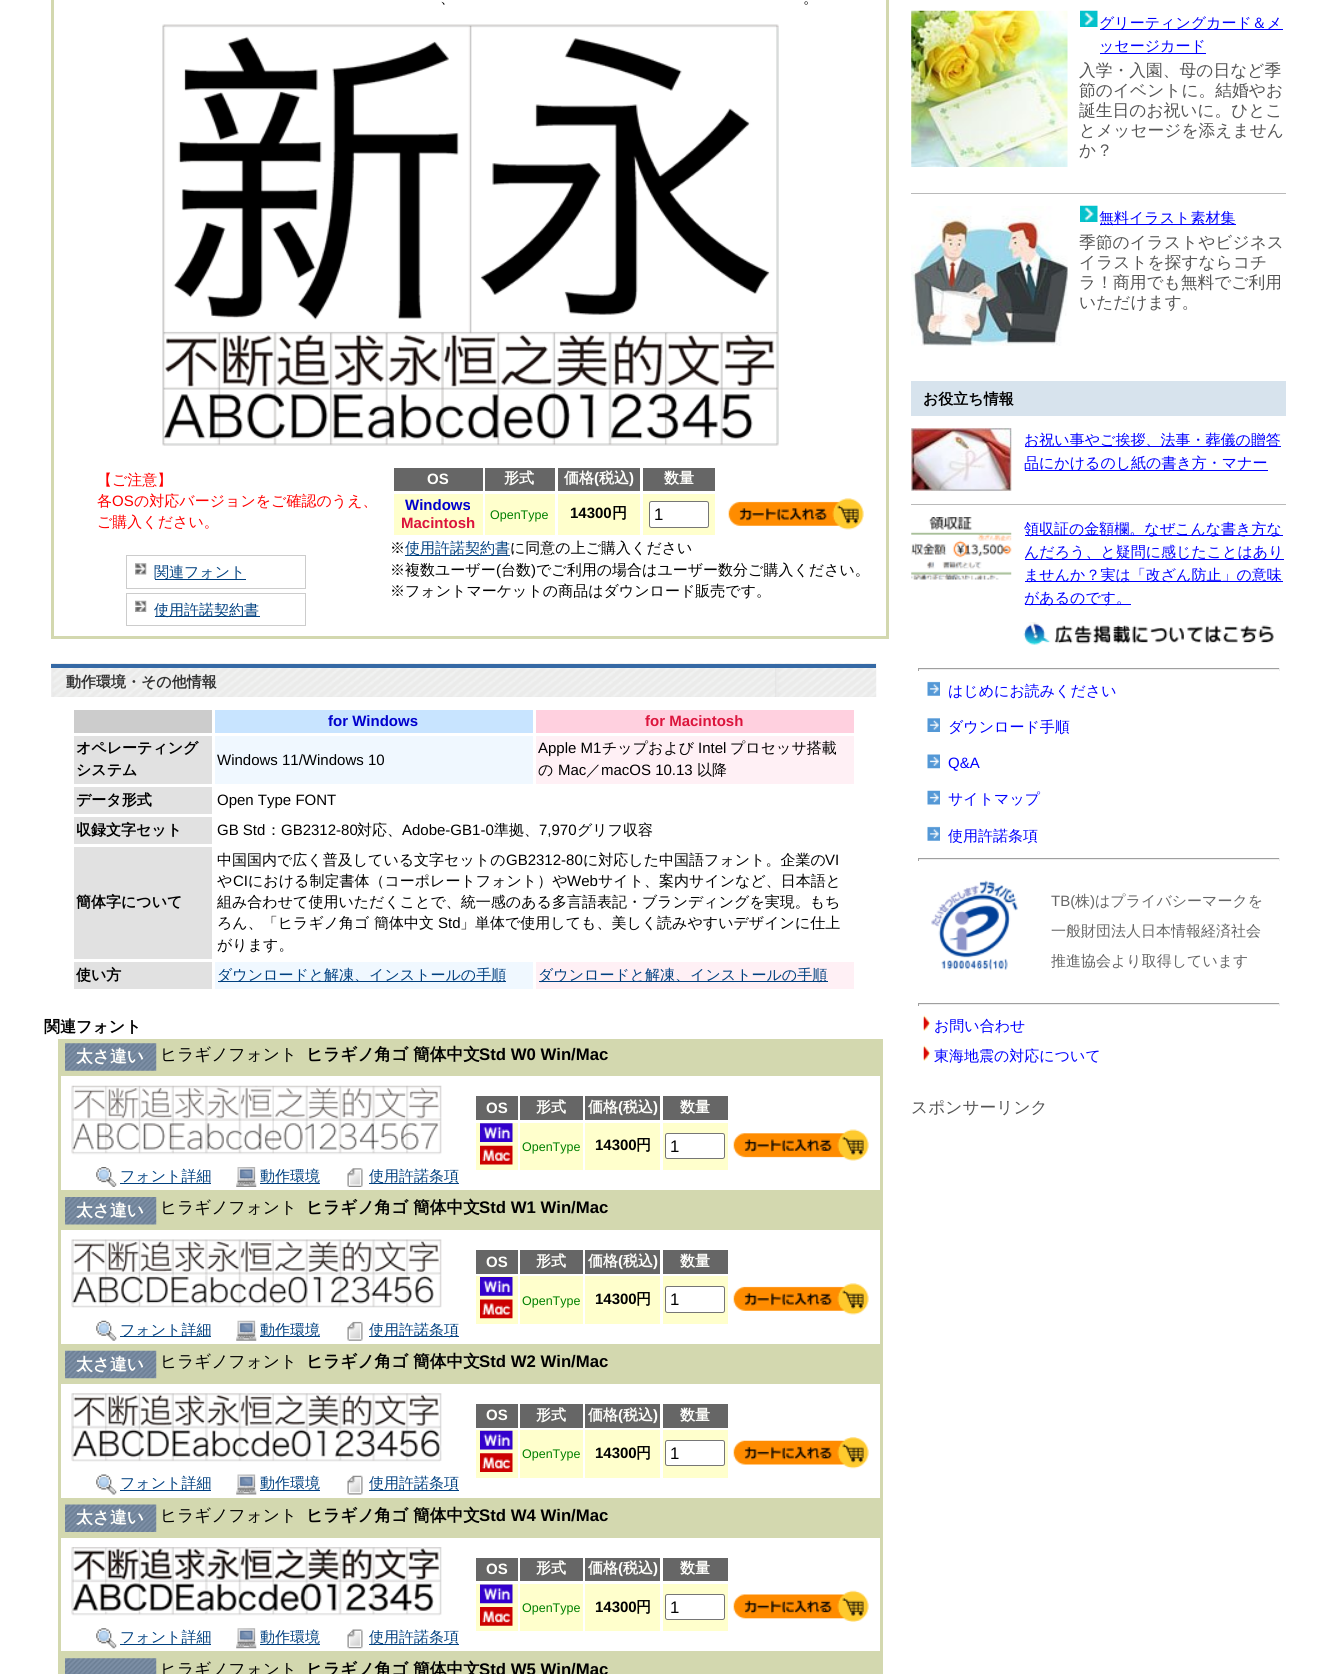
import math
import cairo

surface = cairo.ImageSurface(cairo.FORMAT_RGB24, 1329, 1674)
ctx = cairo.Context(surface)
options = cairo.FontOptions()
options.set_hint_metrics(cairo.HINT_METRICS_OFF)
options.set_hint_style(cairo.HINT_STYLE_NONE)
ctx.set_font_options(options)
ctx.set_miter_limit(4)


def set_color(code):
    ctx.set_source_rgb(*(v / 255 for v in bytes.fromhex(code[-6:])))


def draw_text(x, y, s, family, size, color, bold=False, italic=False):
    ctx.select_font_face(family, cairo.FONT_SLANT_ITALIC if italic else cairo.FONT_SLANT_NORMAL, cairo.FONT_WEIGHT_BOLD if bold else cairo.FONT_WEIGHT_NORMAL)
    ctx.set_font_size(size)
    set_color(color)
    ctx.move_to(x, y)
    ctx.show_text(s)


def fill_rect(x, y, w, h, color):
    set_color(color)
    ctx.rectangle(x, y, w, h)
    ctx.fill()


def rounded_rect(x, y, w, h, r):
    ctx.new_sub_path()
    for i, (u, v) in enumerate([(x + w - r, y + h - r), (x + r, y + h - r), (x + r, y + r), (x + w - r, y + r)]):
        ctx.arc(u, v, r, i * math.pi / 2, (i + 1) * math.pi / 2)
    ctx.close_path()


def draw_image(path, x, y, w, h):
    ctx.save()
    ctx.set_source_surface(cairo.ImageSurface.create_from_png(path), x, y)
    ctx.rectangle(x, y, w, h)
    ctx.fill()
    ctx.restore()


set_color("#ffffff")
ctx.paint()
fill_rect(886, 0, 3, 639, "#d3d8af")
fill_rect(51, 636, 838, 3, "#d3d8af")
fill_rect(51, 0, 3, 639, "#d3d8af")
draw_text(440, 3, "、", "WenQuanYi Zen Hei Medium", 15, "#000000")
draw_text(803, 3, "。", "WenQuanYi Zen Hei Medium", 15, "#000000")
draw_image("assets/img1.png", 162, 24, 617, 422)
draw_text(97, 485, "【ご注意】", "WenQuanYi Zen Hei Medium", 15, "#ff0000")
draw_text(97, 506, "各", "WenQuanYi Zen Hei Medium", 15, "#ff0000")
draw_text(112, 506, "OS", "Liberation Sans", 15, "#ff0000")
draw_text(134, 506, "の対応バージョンをご確認のうえ、", "WenQuanYi Zen Hei Medium", 15, "#ff0000")
draw_text(97, 527, "ご購入ください。", "WenQuanYi Zen Hei Medium", 15, "#ff0000")
draw_image("assets/img2.png", 135, 563, 12, 12)
ctx.rectangle(126.5, 555.5, 179, 33)
set_color("#cccccc")
ctx.set_line_width(1)
ctx.stroke()
draw_text(154, 577, "関連フォント", "WenQuanYi Zen Hei Medium", 15, "#004080")
fill_rect(155, 579, 91, 1, "#004080")
draw_image("assets/img3.png", 135, 600, 12, 12)
ctx.rectangle(126.5, 593.5, 179, 32)
set_color("#cccccc")
ctx.stroke()
fill_rect(155, 616, 105, 1, "#004080")
draw_text(154, 615, "使用許諾契約書", "WenQuanYi Zen Hei Medium", 15, "#004080")
fill_rect(394, 468, 89, 23, "#666666")
draw_text(427, 484, "OS", "Liberation Sans", 15, "#fffffc", bold=True)
fill_rect(485, 468, 70, 23, "#666666")
draw_text(504, 483, "形式", "WenQuanYi Zen Hei", 15, "#fffffc", bold=True)
fill_rect(558, 468, 82, 23, "#666666")
draw_text(564, 483, "価格", "WenQuanYi Zen Hei", 15, "#fffffc", bold=True)
draw_text(594, 483, "(", "Liberation Sans", 15, "#fffffc", bold=True)
draw_text(599, 483, "税込", "WenQuanYi Zen Hei", 15, "#fffffc", bold=True)
draw_text(629, 483, ")", "Liberation Sans", 15, "#fffffc", bold=True)
fill_rect(643, 468, 72, 23, "#666666")
draw_text(664, 483, "数量", "WenQuanYi Zen Hei", 15, "#fffffc", bold=True)
fill_rect(394, 494, 89, 41, "#ffffcc")
draw_text(405, 510, "Windows", "Liberation Sans", 15, "#0000cd", bold=True)
draw_text(401, 528, "Macintosh", "Liberation Sans", 15, "#dc143c", bold=True)
fill_rect(485, 494, 70, 41, "#ffffcc")
draw_text(490, 519, "OpenType", "Liberation Sans", 12.5, "#008000")
fill_rect(558, 494, 82, 41, "#ffffcc")
draw_text(570, 518, "14300", "Liberation Sans", 15, "#000000", bold=True)
draw_text(612, 518, "円", "WenQuanYi Zen Hei", 15, "#000000", bold=True)
fill_rect(643, 494, 72, 41, "#ffffcc")
set_color("#ffffff")
rounded_rect(649.5, 501.5, 59, 26, 2)
ctx.fill_preserve()
set_color("#767676")
ctx.stroke()
draw_text(654, 520, "1", "Liberation Sans", 16.75, "#000000")
draw_image("assets/img4.png", 728, 498, 136, 32)
draw_text(390, 553, "※", "WenQuanYi Zen Hei Medium", 15, "#000000")
fill_rect(405, 555, 105, 1, "#004080")
draw_text(405, 553, "使用許諾契約書", "WenQuanYi Zen Hei Medium", 15, "#004080")
draw_text(510, 553, "に同意の上ご購入ください", "WenQuanYi Zen Hei Medium", 15, "#000000")
draw_text(390, 575, "※複数ユーザー", "WenQuanYi Zen Hei Medium", 15, "#000000")
draw_text(496, 575, "(", "Liberation Sans", 15, "#000000")
draw_text(501, 575, "台数", "WenQuanYi Zen Hei Medium", 15, "#000000")
draw_text(531, 575, ")", "Liberation Sans", 15, "#000000")
draw_text(536, 575, "でご利用の場合はユーザー数分ご購入ください。", "WenQuanYi Zen Hei Medium", 15, "#000000")
draw_text(390, 596, "※フォントマーケットの商品はダウンロード販売です。", "WenQuanYi Zen Hei Medium", 15, "#000000")
draw_image("assets/img5.png", 51, 663, 826, 34)
fill_rect(51, 664, 825, 4, "#3569a5")
draw_text(66, 687, "動作環境・その他情報", "WenQuanYi Zen Hei", 15, "#333333", bold=True)
fill_rect(74, 710, 138, 23, "#cccccc")
fill_rect(215, 710, 318, 23, "#c8e4ff")
draw_text(328, 726, "for Windows", "Liberation Sans", 15, "#0000cd", bold=True)
fill_rect(536, 710, 318, 23, "#ffd0df")
draw_text(645, 726, "for Macintosh", "Liberation Sans", 15, "#dc143c", bold=True)
fill_rect(74, 736, 138, 48, "#e1e1e1")
draw_text(76, 753, "オペレーティング", "WenQuanYi Zen Hei", 15, "#000000", bold=True)
draw_text(76, 775, "システム", "WenQuanYi Zen Hei", 15, "#000000", bold=True)
fill_rect(215, 736, 318, 48, "#f0f8ff")
draw_text(217, 765, "Windows 11/Windows 10", "Liberation Sans", 15, "#000000")
fill_rect(536, 736, 318, 48, "#fff0f5")
draw_text(538, 753, "Apple M1", "Liberation Sans", 15, "#000000")
draw_text(602, 753, "チップおよび", "WenQuanYi Zen Hei Medium", 15, "#000000")
draw_text(698, 753, "Intel", "Liberation Sans", 15, "#000000")
draw_text(730, 753, "プロセッサ搭載", "WenQuanYi Zen Hei Medium", 15, "#000000")
draw_text(538, 775, "の", "WenQuanYi Zen Hei Medium", 15, "#000000")
draw_text(558, 775, "Mac", "Liberation Sans", 15, "#000000")
draw_text(586, 775, "／", "WenQuanYi Zen Hei Medium", 15, "#000000")
draw_text(601, 775, "macOS 10.13", "Liberation Sans", 15, "#000000")
draw_text(697, 775, "以降", "WenQuanYi Zen Hei Medium", 15, "#000000")
fill_rect(74, 787, 138, 27, "#e1e1e1")
draw_text(76, 805, "データ形式", "WenQuanYi Zen Hei", 15, "#000000", bold=True)
draw_text(217, 805, "Open Type FONT", "Liberation Sans", 15, "#000000")
fill_rect(74, 817, 138, 27, "#e1e1e1")
draw_text(76, 835, "収録文字セット", "WenQuanYi Zen Hei", 15, "#000000", bold=True)
draw_text(217, 835, "GB Std", "Liberation Sans", 15, "#000000")
draw_text(266, 835, "：", "WenQuanYi Zen Hei Medium", 15, "#000000")
draw_text(281, 835, "GB2312-80", "Liberation Sans", 15, "#000000")
draw_text(357, 835, "対応、", "WenQuanYi Zen Hei Medium", 15, "#000000")
draw_text(402, 835, "Adobe-GB1-0", "Liberation Sans", 15, "#000000")
draw_text(494, 835, "準拠、", "WenQuanYi Zen Hei Medium", 15, "#000000")
draw_text(539, 835, "7,970", "Liberation Sans", 15, "#000000")
draw_text(577, 835, "グリフ収容", "WenQuanYi Zen Hei Medium", 15, "#000000")
fill_rect(74, 847, 138, 112, "#e1e1e1")
draw_text(76, 907, "簡体字について", "WenQuanYi Zen Hei", 15, "#000000", bold=True)
draw_text(217, 865, "中国国内で広く普及している文字セットの", "WenQuanYi Zen Hei Medium", 15, "#000000")
draw_text(506, 865, "GB2312-80", "Liberation Sans", 15, "#000000")
draw_text(583, 865, "に対応した中国語フォント。企業の", "WenQuanYi Zen Hei Medium", 15, "#000000")
draw_text(825, 865, "VI", "Liberation Sans", 15, "#000000")
draw_text(217, 886, "や", "WenQuanYi Zen Hei Medium", 15, "#000000")
draw_text(233, 886, "CI", "Liberation Sans", 15, "#000000")
draw_text(248, 886, "における制定書体（コーポレートフォント）や", "WenQuanYi Zen Hei Medium", 15, "#000000")
draw_text(567, 886, "Web", "Liberation Sans", 15, "#000000")
draw_text(598, 886, "サイト、案内サインなど、日本語と", "WenQuanYi Zen Hei Medium", 15, "#000000")
draw_text(217, 907, "組み合わせて使用いただくことで、統一感のある多言語表記・ブランディングを実現。もち", "WenQuanYi Zen Hei Medium", 15, "#000000")
draw_text(217, 928, "ろん、「ヒラギノ角ゴ 簡体中文", "WenQuanYi Zen Hei Medium", 15, "#000000")
draw_text(438, 928, "Std", "Liberation Sans", 15, "#000000")
draw_text(460, 928, "」単体で使用しても、美しく読みやすいデザインに仕上", "WenQuanYi Zen Hei Medium", 15, "#000000")
draw_text(217, 950, "がります。", "WenQuanYi Zen Hei Medium", 15, "#000000")
fill_rect(74, 962, 138, 27, "#e1e1e1")
draw_text(76, 980, "使い方", "WenQuanYi Zen Hei", 15, "#000000", bold=True)
fill_rect(215, 962, 318, 27, "#f0f8ff")
fill_rect(218, 981, 288, 1, "#004080")
draw_text(217, 980, "ダウンロードと解凍、インストールの手順", "WenQuanYi Zen Hei Medium", 15, "#004080")
fill_rect(536, 962, 318, 27, "#fff0f5")
fill_rect(539, 981, 289, 1, "#004080")
draw_text(538, 980, "ダウンロードと解凍、インストールの手順", "WenQuanYi Zen Hei Medium", 15, "#004080")
draw_text(44, 1032, "関連フォント", "WenQuanYi Zen Hei", 16, "#000000", bold=True)
fill_rect(880, 1039, 3, 635, "#d3d8af")
fill_rect(58, 1190, 825, 3, "#d3d8af")
fill_rect(58, 1039, 3, 154, "#d3d8af")
fill_rect(61, 1039, 819, 37, "#d3d8af")
draw_image("assets/img6.png", 65, 1043, 92, 28)
draw_text(76, 1062, "太さ違い", "WenQuanYi Zen Hei", 16.75, "#fffffc", bold=True)
draw_text(160, 1060, "ヒラギノフォント", "WenQuanYi Zen Hei Medium", 16.75, "#000000")
draw_text(306, 1060, "ヒラギノ角ゴ", "WenQuanYi Zen Hei", 16.75, "#000000", bold=True)
draw_text(413, 1060, "簡体中文", "WenQuanYi Zen Hei", 16.75, "#000000", bold=True)
draw_text(479, 1060, "Std W0 Win/Mac", "Liberation Sans", 16.75, "#000000", bold=True)
draw_image("assets/img7.png", 71, 1085, 371, 70)
fill_rect(476, 1096, 42, 24, "#666666")
draw_text(486, 1113, "OS", "Liberation Sans", 15, "#fffffc", bold=True)
fill_rect(520, 1096, 63, 24, "#666666")
draw_text(536, 1112, "形式", "WenQuanYi Zen Hei", 15, "#fffffc", bold=True)
fill_rect(585, 1096, 75, 24, "#666666")
draw_text(588, 1112, "価格", "WenQuanYi Zen Hei", 15, "#fffffc", bold=True)
draw_text(618, 1112, "(", "Liberation Sans", 15, "#fffffc", bold=True)
draw_text(623, 1112, "税込", "WenQuanYi Zen Hei", 15, "#fffffc", bold=True)
draw_text(653, 1112, ")", "Liberation Sans", 15, "#fffffc", bold=True)
fill_rect(663, 1096, 65, 24, "#666666")
draw_text(680, 1112, "数量", "WenQuanYi Zen Hei", 15, "#fffffc", bold=True)
fill_rect(476, 1123, 42, 47, "#ffffcc")
draw_image("assets/img8.png", 480, 1123, 33, 19)
draw_image("assets/img9.png", 480, 1145, 33, 20)
fill_rect(520, 1123, 63, 47, "#ffffcc")
draw_text(522, 1151, "OpenType", "Liberation Sans", 12.5, "#008000")
fill_rect(585, 1123, 75, 47, "#ffffcc")
draw_text(595, 1150, "14300", "Liberation Sans", 15, "#000000", bold=True)
draw_text(636, 1150, "円", "WenQuanYi Zen Hei", 15, "#000000", bold=True)
fill_rect(663, 1123, 65, 47, "#ffffcc")
set_color("#ffffff")
rounded_rect(665.5, 1133.5, 59, 25, 2)
ctx.fill_preserve()
set_color("#767676")
ctx.stroke()
draw_text(670, 1152, "1", "Liberation Sans", 16.75, "#000000")
draw_image("assets/img10.png", 733, 1129, 136, 32)
draw_image("assets/img11.png", 96, 1167, 21, 20)
draw_text(120, 1181, "フォント詳細", "WenQuanYi Zen Hei Medium", 15, "#004080")
fill_rect(120, 1183, 91, 1, "#004080")
draw_image("assets/img12.png", 236, 1167, 21, 20)
draw_text(260, 1181, "動作環境", "WenQuanYi Zen Hei Medium", 15, "#004080")
fill_rect(260, 1183, 60, 1, "#004080")
draw_image("assets/img13.png", 347, 1168, 16, 19)
fill_rect(369, 1183, 90, 1, "#004080")
draw_text(369, 1181, "使用許諾条項", "WenQuanYi Zen Hei Medium", 15, "#004080")
fill_rect(58, 1344, 825, 2, "#d3d8af")
fill_rect(58, 1193, 3, 153, "#d3d8af")
fill_rect(61, 1193, 819, 37, "#d3d8af")
draw_image("assets/img14.png", 65, 1197, 92, 28)
draw_text(76, 1216, "太さ違い", "WenQuanYi Zen Hei", 16.75, "#fffffc", bold=True)
draw_text(160, 1213, "ヒラギノフォント", "WenQuanYi Zen Hei Medium", 16.75, "#000000")
draw_text(306, 1213, "ヒラギノ角ゴ", "WenQuanYi Zen Hei", 16.75, "#000000", bold=True)
draw_text(413, 1213, "簡体中文", "WenQuanYi Zen Hei", 16.75, "#000000", bold=True)
draw_text(479, 1213, "Std W1 Win/Mac", "Liberation Sans", 16.75, "#000000", bold=True)
draw_image("assets/img15.png", 71, 1239, 371, 69)
fill_rect(476, 1250, 42, 24, "#666666")
draw_text(486, 1267, "OS", "Liberation Sans", 15, "#fffffc", bold=True)
fill_rect(520, 1250, 63, 24, "#666666")
draw_text(536, 1266, "形式", "WenQuanYi Zen Hei", 15, "#fffffc", bold=True)
fill_rect(585, 1250, 75, 24, "#666666")
draw_text(588, 1266, "価格", "WenQuanYi Zen Hei", 15, "#fffffc", bold=True)
draw_text(618, 1266, "(", "Liberation Sans", 15, "#fffffc", bold=True)
draw_text(623, 1266, "税込", "WenQuanYi Zen Hei", 15, "#fffffc", bold=True)
draw_text(653, 1266, ")", "Liberation Sans", 15, "#fffffc", bold=True)
fill_rect(663, 1250, 65, 24, "#666666")
draw_text(680, 1266, "数量", "WenQuanYi Zen Hei", 15, "#fffffc", bold=True)
fill_rect(476, 1276, 42, 48, "#ffffcc")
draw_image("assets/img16.png", 480, 1277, 33, 19)
draw_image("assets/img17.png", 480, 1299, 33, 20)
fill_rect(520, 1276, 63, 48, "#ffffcc")
draw_text(522, 1305, "OpenType", "Liberation Sans", 12.5, "#008000")
fill_rect(585, 1276, 75, 48, "#ffffcc")
draw_text(595, 1304, "14300", "Liberation Sans", 15, "#000000", bold=True)
draw_text(636, 1304, "円", "WenQuanYi Zen Hei", 15, "#000000", bold=True)
fill_rect(663, 1276, 65, 48, "#ffffcc")
set_color("#ffffff")
rounded_rect(665.5, 1286.5, 59, 26, 2)
ctx.fill_preserve()
set_color("#767676")
ctx.stroke()
draw_text(670, 1305, "1", "Liberation Sans", 16.75, "#000000")
draw_image("assets/img18.png", 733, 1283, 136, 32)
draw_image("assets/img19.png", 96, 1320, 21, 21)
fill_rect(120, 1336, 91, 1, "#004080")
draw_text(120, 1335, "フォント詳細", "WenQuanYi Zen Hei Medium", 15, "#004080")
draw_image("assets/img20.png", 236, 1320, 21, 21)
fill_rect(260, 1336, 60, 1, "#004080")
draw_text(260, 1335, "動作環境", "WenQuanYi Zen Hei Medium", 15, "#004080")
draw_image("assets/img21.png", 347, 1321, 16, 20)
fill_rect(369, 1336, 90, 1, "#004080")
draw_text(369, 1335, "使用許諾条項", "WenQuanYi Zen Hei Medium", 15, "#004080")
fill_rect(58, 1498, 825, 2, "#d3d8af")
fill_rect(58, 1346, 3, 154, "#d3d8af")
fill_rect(61, 1346, 819, 38, "#d3d8af")
draw_image("assets/img22.png", 65, 1350, 92, 29)
draw_text(76, 1370, "太さ違い", "WenQuanYi Zen Hei", 16.75, "#fffffc", bold=True)
draw_text(160, 1367, "ヒラギノフォント", "WenQuanYi Zen Hei Medium", 16.75, "#000000")
draw_text(306, 1367, "ヒラギノ角ゴ", "WenQuanYi Zen Hei", 16.75, "#000000", bold=True)
draw_text(413, 1367, "簡体中文", "WenQuanYi Zen Hei", 16.75, "#000000", bold=True)
draw_text(479, 1367, "Std W2 Win/Mac", "Liberation Sans", 16.75, "#000000", bold=True)
draw_image("assets/img23.png", 71, 1393, 371, 69)
fill_rect(476, 1404, 42, 24, "#666666")
draw_text(486, 1420, "OS", "Liberation Sans", 15, "#fffffc", bold=True)
fill_rect(520, 1404, 63, 24, "#666666")
draw_text(536, 1420, "形式", "WenQuanYi Zen Hei", 15, "#fffffc", bold=True)
fill_rect(585, 1404, 75, 24, "#666666")
draw_text(588, 1420, "価格", "WenQuanYi Zen Hei", 15, "#fffffc", bold=True)
draw_text(618, 1420, "(", "Liberation Sans", 15, "#fffffc", bold=True)
draw_text(623, 1420, "税込", "WenQuanYi Zen Hei", 15, "#fffffc", bold=True)
draw_text(653, 1420, ")", "Liberation Sans", 15, "#fffffc", bold=True)
fill_rect(663, 1404, 65, 24, "#666666")
draw_text(680, 1420, "数量", "WenQuanYi Zen Hei", 15, "#fffffc", bold=True)
fill_rect(476, 1430, 42, 48, "#ffffcc")
draw_image("assets/img24.png", 480, 1430, 33, 20)
draw_image("assets/img25.png", 480, 1453, 33, 19)
fill_rect(520, 1430, 63, 48, "#ffffcc")
draw_text(522, 1458, "OpenType", "Liberation Sans", 12.5, "#008000")
fill_rect(585, 1430, 75, 48, "#ffffcc")
draw_text(595, 1458, "14300", "Liberation Sans", 15, "#000000", bold=True)
draw_text(636, 1458, "円", "WenQuanYi Zen Hei", 15, "#000000", bold=True)
fill_rect(663, 1430, 65, 48, "#ffffcc")
set_color("#ffffff")
rounded_rect(665.5, 1440.5, 59, 25, 2)
ctx.fill_preserve()
set_color("#767676")
ctx.stroke()
draw_text(670, 1459, "1", "Liberation Sans", 16.75, "#000000")
draw_image("assets/img26.png", 733, 1437, 136, 32)
draw_image("assets/img27.png", 96, 1474, 21, 21)
draw_text(120, 1488, "フォント詳細", "WenQuanYi Zen Hei Medium", 15, "#004080")
fill_rect(120, 1490, 91, 1, "#004080")
draw_image("assets/img28.png", 236, 1474, 21, 21)
draw_text(260, 1488, "動作環境", "WenQuanYi Zen Hei Medium", 15, "#004080")
fill_rect(260, 1490, 60, 1, "#004080")
draw_image("assets/img29.png", 347, 1475, 16, 20)
fill_rect(369, 1490, 90, 1, "#004080")
draw_text(369, 1488, "使用許諾条項", "WenQuanYi Zen Hei Medium", 15, "#004080")
fill_rect(58, 1651, 825, 3, "#d3d8af")
fill_rect(58, 1500, 3, 154, "#d3d8af")
fill_rect(61, 1500, 819, 38, "#d3d8af")
draw_image("assets/img30.png", 65, 1504, 92, 28)
draw_text(76, 1523, "太さ違い", "WenQuanYi Zen Hei", 16.75, "#fffffc", bold=True)
draw_text(160, 1521, "ヒラギノフォント", "WenQuanYi Zen Hei Medium", 16.75, "#000000")
draw_text(306, 1521, "ヒラギノ角ゴ", "WenQuanYi Zen Hei", 16.75, "#000000", bold=True)
draw_text(413, 1521, "簡体中文", "WenQuanYi Zen Hei", 16.75, "#000000", bold=True)
draw_text(479, 1521, "Std W4 Win/Mac", "Liberation Sans", 16.75, "#000000", bold=True)
draw_image("assets/img31.png", 71, 1547, 371, 69)
fill_rect(476, 1558, 42, 23, "#666666")
draw_text(486, 1574, "OS", "Liberation Sans", 15, "#fffffc", bold=True)
fill_rect(520, 1558, 63, 23, "#666666")
draw_text(536, 1573, "形式", "WenQuanYi Zen Hei", 15, "#fffffc", bold=True)
fill_rect(585, 1558, 75, 23, "#666666")
draw_text(588, 1573, "価格", "WenQuanYi Zen Hei", 15, "#fffffc", bold=True)
draw_text(618, 1573, "(", "Liberation Sans", 15, "#fffffc", bold=True)
draw_text(623, 1573, "税込", "WenQuanYi Zen Hei", 15, "#fffffc", bold=True)
draw_text(653, 1573, ")", "Liberation Sans", 15, "#fffffc", bold=True)
fill_rect(663, 1558, 65, 23, "#666666")
draw_text(680, 1573, "数量", "WenQuanYi Zen Hei", 15, "#fffffc", bold=True)
fill_rect(476, 1584, 42, 47, "#ffffcc")
draw_image("assets/img32.png", 480, 1584, 33, 20)
draw_image("assets/img33.png", 480, 1607, 33, 19)
fill_rect(520, 1584, 63, 47, "#ffffcc")
draw_text(522, 1612, "OpenType", "Liberation Sans", 12.5, "#008000")
fill_rect(585, 1584, 75, 47, "#ffffcc")
draw_text(595, 1612, "14300", "Liberation Sans", 15, "#000000", bold=True)
draw_text(636, 1612, "円", "WenQuanYi Zen Hei", 15, "#000000", bold=True)
fill_rect(663, 1584, 65, 47, "#ffffcc")
set_color("#ffffff")
rounded_rect(665.5, 1594.5, 59, 25, 2)
ctx.fill_preserve()
set_color("#767676")
ctx.stroke()
draw_text(670, 1613, "1", "Liberation Sans", 16.75, "#000000")
draw_image("assets/img34.png", 733, 1590, 136, 32)
draw_image("assets/img35.png", 96, 1628, 21, 21)
draw_text(120, 1642, "フォント詳細", "WenQuanYi Zen Hei Medium", 15, "#004080")
fill_rect(120, 1644, 91, 1, "#004080")
draw_image("assets/img36.png", 236, 1628, 21, 21)
draw_text(260, 1642, "動作環境", "WenQuanYi Zen Hei Medium", 15, "#004080")
fill_rect(260, 1644, 60, 1, "#004080")
draw_image("assets/img37.png", 347, 1629, 16, 20)
fill_rect(369, 1644, 90, 1, "#004080")
draw_text(369, 1642, "使用許諾条項", "WenQuanYi Zen Hei Medium", 15, "#004080")
fill_rect(58, 1654, 822, 20, "#d3d8af")
draw_image("assets/img38.png", 65, 1658, 92, 16)
draw_text(160, 1675, "ヒラギノフォント", "WenQuanYi Zen Hei Medium", 16.75, "#000000")
draw_text(306, 1675, "ヒラギノ角ゴ", "WenQuanYi Zen Hei", 16.75, "#000000", bold=True)
draw_text(413, 1675, "簡体中文", "WenQuanYi Zen Hei", 16.75, "#000000", bold=True)
draw_text(479, 1675, "Std W5 Win/Mac", "Liberation Sans", 16.75, "#000000", bold=True)
draw_image("assets/img39.png", 911, 10, 157, 157)
draw_image("assets/img40.png", 1080, 10, 18, 17)
fill_rect(1100, 29, 183, 1, "#0000ff")
draw_text(1099, 28, "グリーティングカード＆メ", "WenQuanYi Zen Hei Medium", 15, "#0000ff")
draw_text(1099, 51, "ッセージカード", "WenQuanYi Zen Hei Medium", 15, "#0000ff")
fill_rect(1100, 53, 106, 1, "#0000ff")
draw_text(1079, 76, "入学・入園、母の日など季", "WenQuanYi Zen Hei Medium", 16.75, "#555555")
draw_text(1079, 96, "節のイベントに。結婚やお", "WenQuanYi Zen Hei Medium", 16.75, "#555555")
draw_text(1079, 116, "誕生日のお祝いに。ひとこ", "WenQuanYi Zen Hei Medium", 16.75, "#555555")
draw_text(1079, 136, "とメッセージを添えません", "WenQuanYi Zen Hei Medium", 16.75, "#555555")
draw_text(1079, 156, "か？", "WenQuanYi Zen Hei Medium", 16.75, "#555555")
fill_rect(911, 193, 375, 1, "#b9b9b9")
draw_image("assets/img41.png", 911, 206, 157, 140)
draw_image("assets/img40.png", 1080, 205, 18, 17)
fill_rect(1100, 224, 136, 1, "#0000ff")
draw_text(1099, 223, "無料イラスト素材集", "WenQuanYi Zen Hei Medium", 15, "#0000ff")
draw_text(1079, 248, "季節のイラストやビジネス", "WenQuanYi Zen Hei Medium", 16.75, "#555555")
draw_text(1079, 268, "イラストを探すならコチ", "WenQuanYi Zen Hei Medium", 16.75, "#555555")
draw_text(1079, 288, "ラ！商用でも無料でご利用", "WenQuanYi Zen Hei Medium", 16.75, "#555555")
draw_text(1079, 308, "いただけます。", "WenQuanYi Zen Hei Medium", 16.75, "#555555")
fill_rect(911, 381, 375, 35, "#d7e3ed")
draw_text(923, 404, "お役立ち情報", "WenQuanYi Zen Hei", 15, "#000000", bold=True)
draw_image("assets/img42.png", 911, 428, 101, 63)
fill_rect(1025, 446, 256, 1, "#0000ff")
draw_text(1024, 445, "お祝い事やご挨拶、法事・葬儀の贈答", "WenQuanYi Zen Hei Medium", 15, "#0000ff")
fill_rect(1025, 470, 243, 1, "#0000ff")
draw_text(1024, 468, "品にかけるのし紙の書き方・マナー", "WenQuanYi Zen Hei Medium", 15, "#0000ff")
fill_rect(911, 504, 375, 1, "#b9b9b9")
draw_image("assets/img43.png", 911, 517, 101, 63)
fill_rect(1025, 535, 258, 1, "#0000ff")
draw_text(1024, 534, "領収証の金額欄。なぜこんな書き方な", "WenQuanYi Zen Hei Medium", 15, "#0000ff")
fill_rect(1025, 559, 259, 1, "#0000ff")
draw_text(1024, 557, "んだろう、と疑問に感じたことはあり", "WenQuanYi Zen Hei Medium", 15, "#0000ff")
fill_rect(1025, 581, 258, 1, "#0000ff")
draw_text(1024, 580, "ませんか？実は「改ざん防止」の意味", "WenQuanYi Zen Hei Medium", 15, "#0000ff")
fill_rect(1025, 604, 106, 1, "#0000ff")
draw_text(1024, 603, "があるのです。", "WenQuanYi Zen Hei Medium", 15, "#0000ff")
draw_image("assets/img44.png", 1023, 622, 251, 23)
fill_rect(918, 668, 362, 1, "#9f9f9f")
fill_rect(1279, 668, 1, 3, "#eeeeee")
fill_rect(918, 669, 362, 1, "#eeeeee")
fill_rect(918, 668, 1, 3, "#9f9f9f")
draw_image("assets/img45.png", 927, 681, 13, 15)
draw_text(948, 696, "はじめにお読みください", "WenQuanYi Zen Hei Medium", 15, "#0000ff")
draw_image("assets/img46.png", 927, 718, 13, 14)
draw_text(948, 732, "ダウンロード手順", "WenQuanYi Zen Hei Medium", 15, "#0000ff")
draw_image("assets/img47.png", 927, 754, 13, 15)
draw_text(948, 768, "Q&A", "Liberation Sans", 15, "#0000ff")
draw_image("assets/img48.png", 927, 790, 13, 15)
draw_text(948, 804, "サイトマップ", "WenQuanYi Zen Hei Medium", 15, "#0000ff")
draw_image("assets/img45.png", 927, 826, 13, 15)
draw_text(948, 841, "使用許諾条項", "WenQuanYi Zen Hei Medium", 15, "#0000ff")
fill_rect(918, 858, 362, 1, "#9f9f9f")
fill_rect(1279, 858, 1, 3, "#eeeeee")
fill_rect(918, 859, 362, 1, "#eeeeee")
fill_rect(918, 858, 1, 3, "#9f9f9f")
draw_image("assets/img49.png", 931, 880, 87, 90)
draw_text(1051, 906, "TB(", "Liberation Sans", 15, "#666666")
draw_text(1075, 906, "株", "WenQuanYi Zen Hei Medium", 15, "#666666")
draw_text(1090, 906, ")", "Liberation Sans", 15, "#666666")
draw_text(1095, 906, "はプライバシーマークを", "WenQuanYi Zen Hei Medium", 15, "#666666")
draw_text(1051, 936, "一般財団法人日本情報経済社会", "WenQuanYi Zen Hei Medium", 15, "#666666")
draw_text(1051, 966, "推進協会より取得しています", "WenQuanYi Zen Hei Medium", 15, "#666666")
fill_rect(918, 1003, 362, 1, "#9f9f9f")
fill_rect(1279, 1003, 1, 3, "#eeeeee")
fill_rect(918, 1004, 362, 1, "#eeeeee")
fill_rect(918, 1003, 1, 3, "#9f9f9f")
draw_image("assets/img50.png", 923, 1015, 7, 16)
draw_text(934, 1031, "お問い合わせ", "WenQuanYi Zen Hei Medium", 15, "#0000ff")
draw_image("assets/img50.png", 923, 1045, 7, 16)
draw_text(934, 1061, "東海地震の対応について", "WenQuanYi Zen Hei Medium", 15, "#0000ff")
draw_text(911, 1113, "スポンサーリンク", "WenQuanYi Zen Hei Medium", 16.75, "#555555")
surface.write_to_png("output.png")
